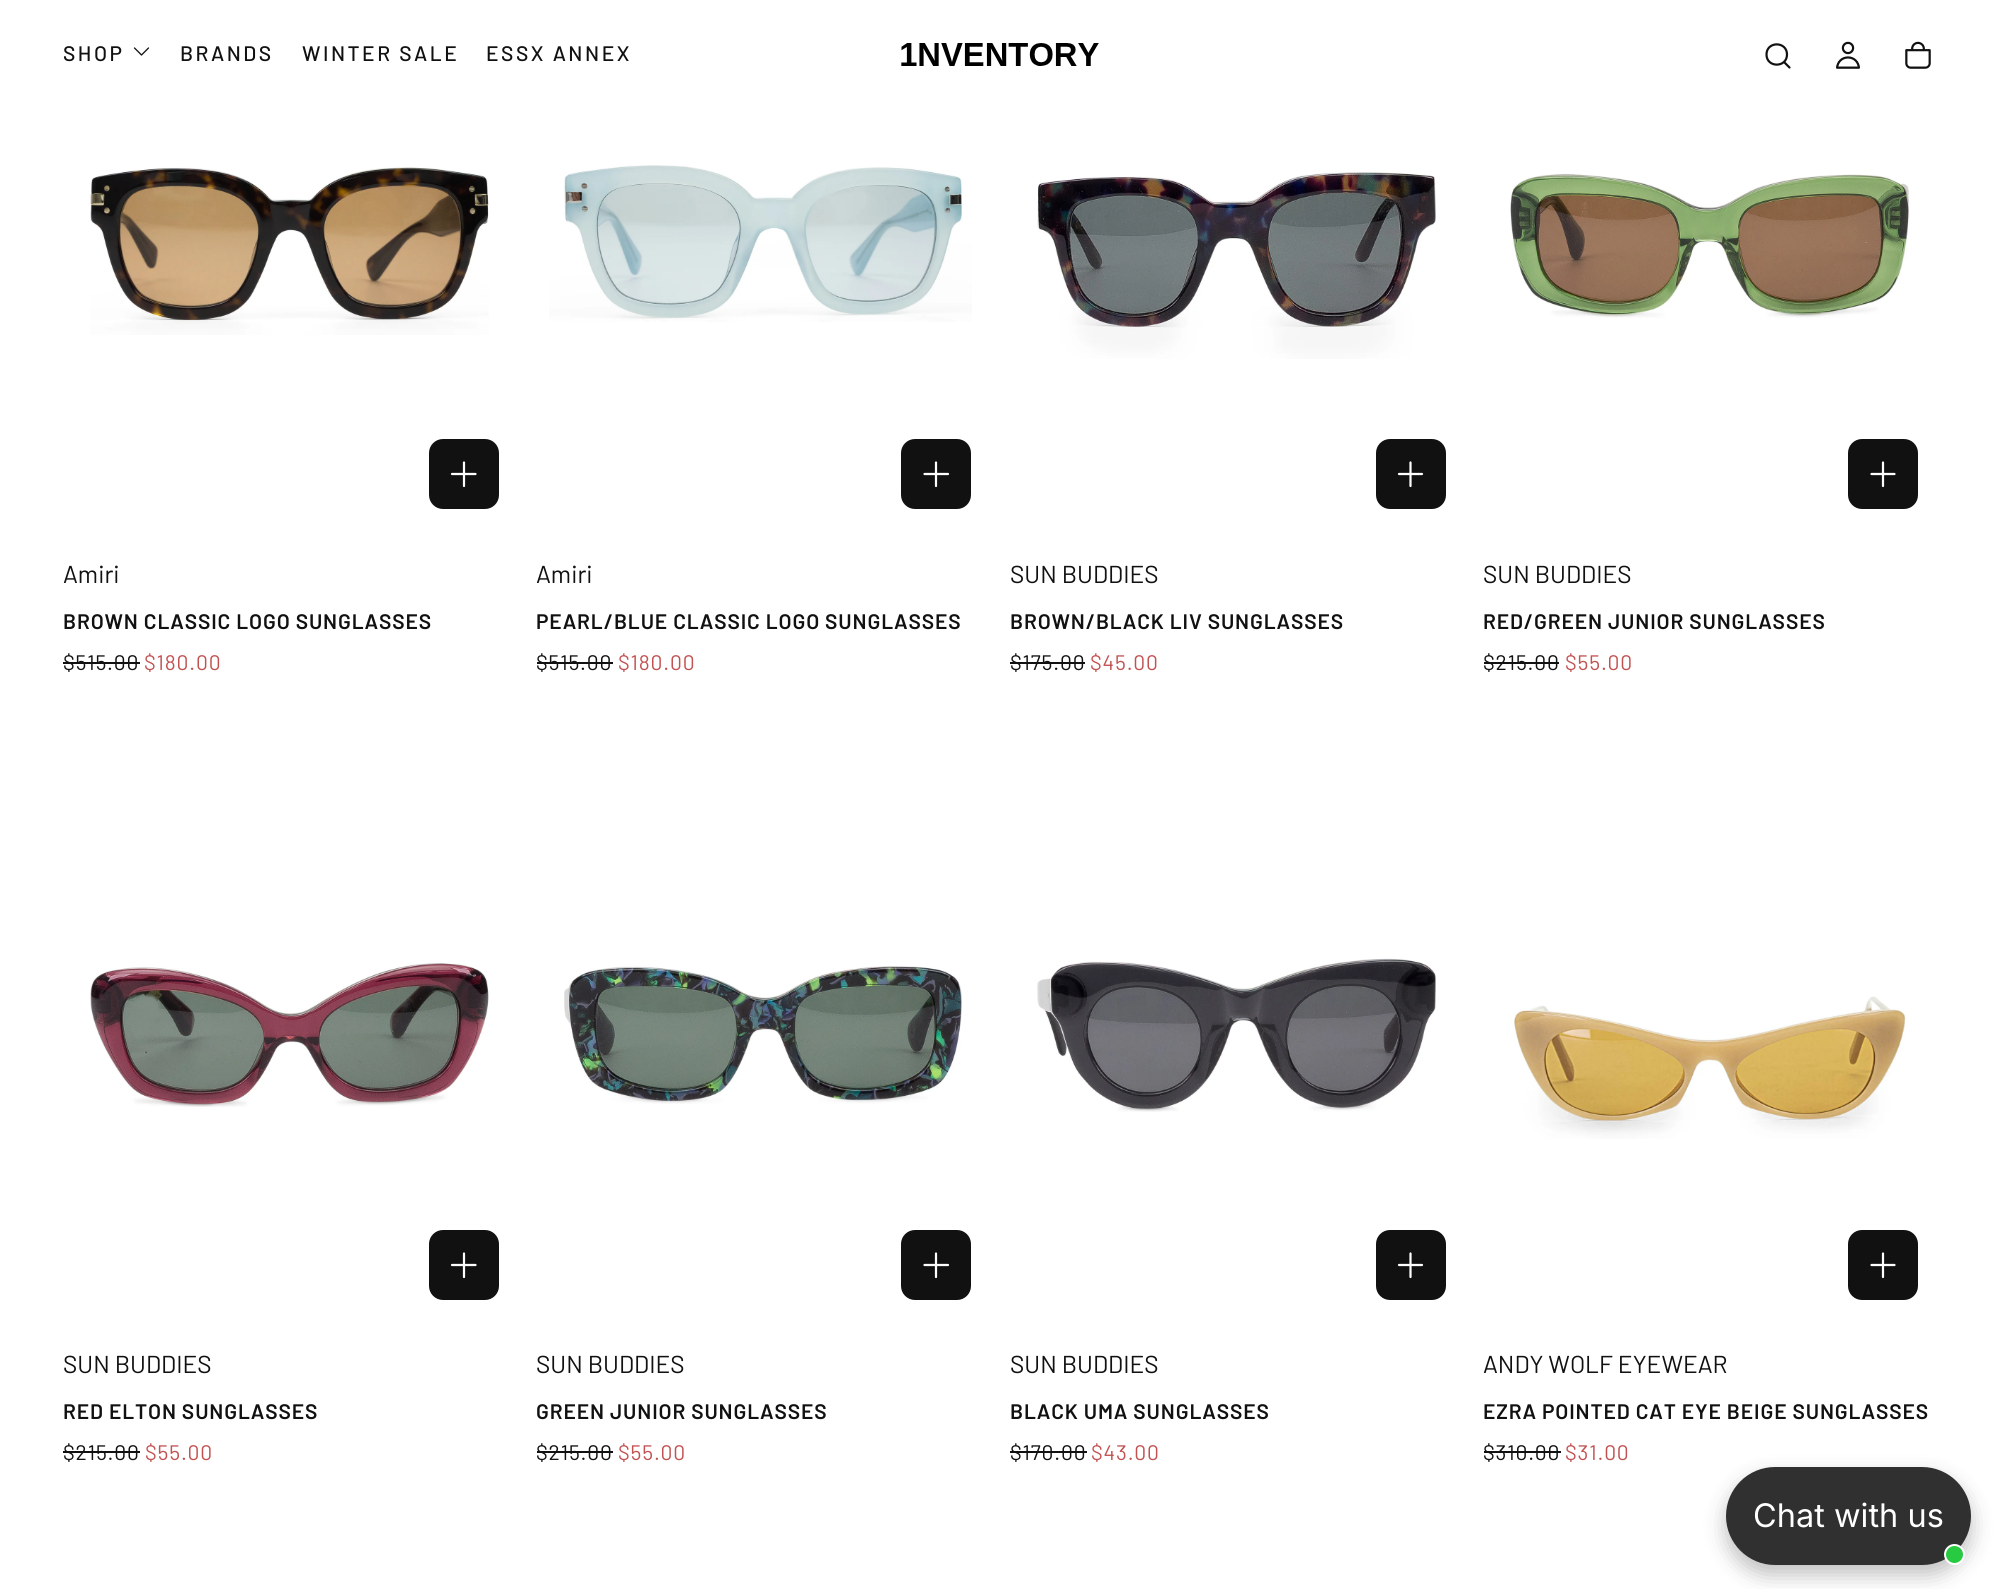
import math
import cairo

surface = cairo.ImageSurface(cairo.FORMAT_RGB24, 1997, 1589)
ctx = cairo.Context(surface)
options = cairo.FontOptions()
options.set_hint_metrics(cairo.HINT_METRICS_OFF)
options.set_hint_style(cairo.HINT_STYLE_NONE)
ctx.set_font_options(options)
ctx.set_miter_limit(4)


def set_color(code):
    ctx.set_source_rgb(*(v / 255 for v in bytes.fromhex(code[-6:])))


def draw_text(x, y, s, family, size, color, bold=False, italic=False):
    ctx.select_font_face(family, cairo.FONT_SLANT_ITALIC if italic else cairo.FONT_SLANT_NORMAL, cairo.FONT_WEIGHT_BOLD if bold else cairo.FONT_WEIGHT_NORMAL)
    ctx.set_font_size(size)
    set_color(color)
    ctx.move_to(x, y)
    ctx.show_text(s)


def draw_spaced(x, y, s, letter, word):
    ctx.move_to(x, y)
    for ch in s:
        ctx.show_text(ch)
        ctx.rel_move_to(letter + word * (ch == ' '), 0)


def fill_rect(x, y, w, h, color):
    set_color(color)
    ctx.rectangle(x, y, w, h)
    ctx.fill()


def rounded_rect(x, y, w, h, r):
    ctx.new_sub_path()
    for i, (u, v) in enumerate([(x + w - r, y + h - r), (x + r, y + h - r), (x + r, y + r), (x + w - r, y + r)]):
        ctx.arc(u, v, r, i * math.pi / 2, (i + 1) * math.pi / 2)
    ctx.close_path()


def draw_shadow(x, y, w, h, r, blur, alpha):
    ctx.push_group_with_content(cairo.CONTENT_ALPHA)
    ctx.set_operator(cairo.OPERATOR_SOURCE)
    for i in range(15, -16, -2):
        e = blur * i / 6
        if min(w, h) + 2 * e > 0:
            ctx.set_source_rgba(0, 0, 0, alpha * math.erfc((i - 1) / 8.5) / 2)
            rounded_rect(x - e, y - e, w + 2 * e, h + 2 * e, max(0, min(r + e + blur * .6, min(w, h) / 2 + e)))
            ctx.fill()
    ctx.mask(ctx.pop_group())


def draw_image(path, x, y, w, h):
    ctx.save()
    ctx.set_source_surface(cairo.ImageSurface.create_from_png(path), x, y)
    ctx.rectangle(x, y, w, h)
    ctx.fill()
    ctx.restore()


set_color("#ffffff")
ctx.paint()
ctx.select_font_face("Barlow Medium")
ctx.set_font_size(21)
set_color("#111111")
draw_spaced(63, 61, "SHOP", 2.5, 0)
ctx.new_path()
ctx.move_to(148.5, 48)
ctx.line_to(141.5, 55)
ctx.line_to(134.5, 48)
ctx.set_line_width(1.3)
ctx.set_line_cap(cairo.LINE_CAP_ROUND)
ctx.set_line_join(cairo.LINE_JOIN_ROUND)
ctx.stroke()
draw_spaced(180, 61, "BRANDS", 2.5, 0)
draw_spaced(302, 61, "WINTER SALE", 2.5, 0)
draw_spaced(486, 61, "ESSX ANNEX", 2.5, 0)
draw_image("assets/img1.png", 901, 43, 198, 23)
ctx.new_path()
ctx.move_to(1789.5, 67.5)
ctx.line_to(1784, 62)
ctx.move_to(1787, 54.5)
ctx.curve_to(1787, 68, 1766.5, 68, 1766.5, 54.5)
ctx.curve_to(1766.5, 41, 1787, 41, 1787, 54.5)
ctx.close_path()
ctx.set_line_width(2.2)
ctx.set_line_join(cairo.LINE_JOIN_MITER)
ctx.stroke()
draw_image("assets/img2.png", 1836, 41, 24, 28)
draw_image("assets/img3.png", 1905, 41, 26, 28)
draw_image("assets/img4.png", 90, 167, 399, 168)
rounded_rect(429, 439, 70, 70, 14)
ctx.fill()
ctx.new_path()
ctx.move_to(464, 462.5)
ctx.line_to(464, 474)
ctx.move_to(464, 474)
ctx.line_to(464, 486)
ctx.move_to(464, 474)
ctx.line_to(452, 474)
ctx.move_to(464, 474)
ctx.line_to(475.5, 474)
set_color("#ffffff")
ctx.stroke()
draw_text(63, 583, "Amiri", "Barlow", 24.5, "#111111")
ctx.select_font_face("Barlow SemiBold")
ctx.set_font_size(21)
draw_spaced(63, 629, "BROWN CLASSIC LOGO SUNGLASSES", 0.85, 0)
ctx.select_font_face("Barlow")
draw_spaced(63, 670, "$515.00", 0.85, 0)
fill_rect(63, 662, 77, 2, "#111111")
set_color("#c25151")
draw_spaced(144, 670, "$180.00", 0.85, 0)
draw_image("assets/img5.png", 549, 165, 423, 157)
set_color("#111111")
rounded_rect(901, 439, 70, 70, 14)
ctx.fill()
ctx.new_path()
ctx.move_to(936, 462.5)
ctx.line_to(936, 474)
ctx.move_to(936, 474)
ctx.line_to(936, 486)
ctx.move_to(936, 474)
ctx.line_to(924.5, 474)
ctx.move_to(936, 474)
ctx.line_to(948, 474)
set_color("#ffffff")
ctx.stroke()
draw_text(536, 583, "Amiri", "Barlow", 24.5, "#111111")
ctx.select_font_face("Barlow SemiBold")
ctx.set_font_size(21)
draw_spaced(536, 629, "PEARL/BLUE CLASSIC LOGO SUNGLASSES", 0.85, 0)
ctx.select_font_face("Barlow")
draw_spaced(536, 670, "$515.00", 0.85, 0)
fill_rect(537, 662, 76, 2, "#111111")
set_color("#c25151")
draw_spaced(618, 670, "$180.00", 0.85, 0)
draw_image("assets/img6.png", 1037, 172, 399, 187)
set_color("#111111")
rounded_rect(1376, 439, 70, 70, 14)
ctx.fill()
ctx.new_path()
ctx.move_to(1410.5, 462.5)
ctx.line_to(1410.5, 474)
ctx.move_to(1410.5, 474)
ctx.line_to(1410.5, 486)
ctx.move_to(1410.5, 474)
ctx.line_to(1399, 474)
ctx.move_to(1410.5, 474)
ctx.line_to(1422, 474)
set_color("#ffffff")
ctx.stroke()
draw_text(1010, 583, "SUN BUDDIES", "Barlow", 24.5, "#111111")
ctx.select_font_face("Barlow SemiBold")
ctx.set_font_size(21)
draw_spaced(1010, 629, "BROWN/BLACK LIV SUNGLASSES", 0.85, 0)
ctx.select_font_face("Barlow")
draw_spaced(1010, 670, "$175.00", 0.85, 0)
fill_rect(1010, 662, 75, 2, "#111111")
set_color("#c25151")
draw_spaced(1090, 670, "$45.00", 0.85, 0)
draw_image("assets/img7.png", 1510, 173, 400, 145)
set_color("#111111")
rounded_rect(1848, 439, 70, 70, 14)
ctx.fill()
ctx.new_path()
ctx.move_to(1883, 462.5)
ctx.line_to(1883, 474)
ctx.move_to(1883, 474)
ctx.line_to(1883, 486)
ctx.move_to(1883, 474)
ctx.line_to(1871.5, 474)
ctx.move_to(1883, 474)
ctx.line_to(1894.5, 474)
set_color("#ffffff")
ctx.stroke()
draw_text(1483, 583, "SUN BUDDIES", "Barlow", 24.5, "#111111")
ctx.select_font_face("Barlow SemiBold")
ctx.set_font_size(21)
draw_spaced(1483, 629, "RED/GREEN JUNIOR SUNGLASSES", 0.85, 0)
ctx.select_font_face("Barlow")
draw_spaced(1483, 670, "$215.00", 0.85, 0)
fill_rect(1484, 662, 75, 2, "#111111")
set_color("#c25151")
draw_spaced(1565, 670, "$55.00", 0.85, 0)
draw_image("assets/img8.png", 90, 963, 399, 144)
set_color("#111111")
rounded_rect(429, 1230, 70, 70, 14)
ctx.fill()
ctx.new_path()
ctx.move_to(464, 1253.5)
ctx.line_to(464, 1265)
ctx.move_to(464, 1265)
ctx.line_to(464, 1277)
ctx.move_to(464, 1265)
ctx.line_to(452, 1265)
ctx.move_to(464, 1265)
ctx.line_to(475.5, 1265)
set_color("#ffffff")
ctx.stroke()
draw_text(63, 1373, "SUN BUDDIES", "Barlow", 24.5, "#111111")
ctx.select_font_face("Barlow SemiBold")
ctx.set_font_size(21)
draw_spaced(63, 1419, "RED ELTON SUNGLASSES", 0.85, 0)
ctx.select_font_face("Barlow")
draw_spaced(63, 1460, "$215.00", 0.85, 0)
fill_rect(63, 1451, 77, 2, "#111111")
set_color("#c25151")
draw_spaced(145, 1460, "$55.00", 0.85, 0)
draw_image("assets/img9.png", 564, 966, 398, 138)
set_color("#111111")
rounded_rect(901, 1230, 70, 70, 14)
ctx.fill()
ctx.new_path()
ctx.move_to(936, 1253.5)
ctx.line_to(936, 1265)
ctx.move_to(936, 1265)
ctx.line_to(936, 1277)
ctx.move_to(936, 1265)
ctx.line_to(924.5, 1265)
ctx.move_to(936, 1265)
ctx.line_to(948, 1265)
set_color("#ffffff")
ctx.stroke()
draw_text(536, 1373, "SUN BUDDIES", "Barlow", 24.5, "#111111")
ctx.select_font_face("Barlow SemiBold")
ctx.set_font_size(21)
draw_spaced(536, 1419, "GREEN JUNIOR SUNGLASSES", 0.85, 0)
ctx.select_font_face("Barlow")
draw_spaced(536, 1460, "$215.00", 0.85, 0)
fill_rect(537, 1451, 76, 2, "#111111")
set_color("#c25151")
draw_spaced(618, 1460, "$55.00", 0.85, 0)
draw_image("assets/img10.png", 1037, 958, 399, 154)
set_color("#111111")
rounded_rect(1376, 1230, 70, 70, 14)
ctx.fill()
ctx.new_path()
ctx.move_to(1410.5, 1253.5)
ctx.line_to(1410.5, 1265)
ctx.move_to(1410.5, 1265)
ctx.line_to(1410.5, 1277)
ctx.move_to(1410.5, 1265)
ctx.line_to(1399, 1265)
ctx.move_to(1410.5, 1265)
ctx.line_to(1422, 1265)
set_color("#ffffff")
ctx.stroke()
draw_text(1010, 1373, "SUN BUDDIES", "Barlow", 24.5, "#111111")
ctx.select_font_face("Barlow SemiBold")
ctx.set_font_size(21)
draw_spaced(1010, 1419, "BLACK UMA SUNGLASSES", 0.85, 0)
ctx.select_font_face("Barlow")
draw_spaced(1010, 1460, "$170.00", 0.85, 0)
fill_rect(1010, 1451, 77, 2, "#111111")
set_color("#c25151")
draw_spaced(1091, 1460, "$43.00", 0.85, 0)
draw_image("assets/img11.png", 1512, 996, 394, 143)
set_color("#111111")
rounded_rect(1848, 1230, 70, 70, 14)
ctx.fill()
ctx.new_path()
ctx.move_to(1883, 1253.5)
ctx.line_to(1883, 1265)
ctx.move_to(1883, 1265)
ctx.line_to(1883, 1277)
ctx.move_to(1883, 1265)
ctx.line_to(1871.5, 1265)
ctx.move_to(1883, 1265)
ctx.line_to(1894.5, 1265)
set_color("#ffffff")
ctx.stroke()
draw_text(1483, 1373, "ANDY WOLF EYEWEAR", "Barlow", 24.5, "#111111")
ctx.select_font_face("Barlow SemiBold")
ctx.set_font_size(21)
draw_spaced(1483, 1419, "EZRA POINTED CAT EYE BEIGE SUNGLASSES", 0.85, 0)
ctx.select_font_face("Barlow")
draw_spaced(1483, 1460, "$310.00", 0.85, 0)
fill_rect(1484, 1451, 77, 2, "#111111")
set_color("#c25151")
draw_spaced(1565, 1460, "$31.00", 0.85, 0)
set_color("#000000")
draw_shadow(1726, 1477, 245, 98, 49, 10.5, 0.25)
set_color("#303030")
rounded_rect(1726, 1467, 245, 98, 49)
ctx.fill()
draw_text(1753, 1527, "Chat with us", "Inter", 32.5, "#ffffff")
set_color("#27ca40")
ctx.new_path()
ctx.arc(1954.5, 1554.5, 9.5, 0, 2 * math.pi)
ctx.fill_preserve()
set_color("#ffffff")
ctx.set_line_width(2)
ctx.set_line_cap(cairo.LINE_CAP_BUTT)
ctx.stroke()
surface.write_to_png("output.png")
